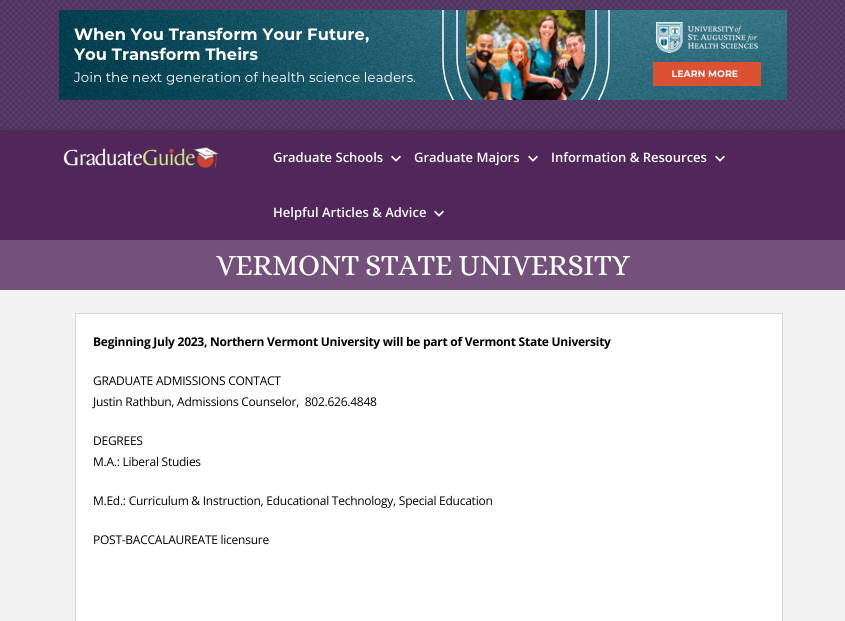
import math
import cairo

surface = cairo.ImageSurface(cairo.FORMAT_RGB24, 845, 621)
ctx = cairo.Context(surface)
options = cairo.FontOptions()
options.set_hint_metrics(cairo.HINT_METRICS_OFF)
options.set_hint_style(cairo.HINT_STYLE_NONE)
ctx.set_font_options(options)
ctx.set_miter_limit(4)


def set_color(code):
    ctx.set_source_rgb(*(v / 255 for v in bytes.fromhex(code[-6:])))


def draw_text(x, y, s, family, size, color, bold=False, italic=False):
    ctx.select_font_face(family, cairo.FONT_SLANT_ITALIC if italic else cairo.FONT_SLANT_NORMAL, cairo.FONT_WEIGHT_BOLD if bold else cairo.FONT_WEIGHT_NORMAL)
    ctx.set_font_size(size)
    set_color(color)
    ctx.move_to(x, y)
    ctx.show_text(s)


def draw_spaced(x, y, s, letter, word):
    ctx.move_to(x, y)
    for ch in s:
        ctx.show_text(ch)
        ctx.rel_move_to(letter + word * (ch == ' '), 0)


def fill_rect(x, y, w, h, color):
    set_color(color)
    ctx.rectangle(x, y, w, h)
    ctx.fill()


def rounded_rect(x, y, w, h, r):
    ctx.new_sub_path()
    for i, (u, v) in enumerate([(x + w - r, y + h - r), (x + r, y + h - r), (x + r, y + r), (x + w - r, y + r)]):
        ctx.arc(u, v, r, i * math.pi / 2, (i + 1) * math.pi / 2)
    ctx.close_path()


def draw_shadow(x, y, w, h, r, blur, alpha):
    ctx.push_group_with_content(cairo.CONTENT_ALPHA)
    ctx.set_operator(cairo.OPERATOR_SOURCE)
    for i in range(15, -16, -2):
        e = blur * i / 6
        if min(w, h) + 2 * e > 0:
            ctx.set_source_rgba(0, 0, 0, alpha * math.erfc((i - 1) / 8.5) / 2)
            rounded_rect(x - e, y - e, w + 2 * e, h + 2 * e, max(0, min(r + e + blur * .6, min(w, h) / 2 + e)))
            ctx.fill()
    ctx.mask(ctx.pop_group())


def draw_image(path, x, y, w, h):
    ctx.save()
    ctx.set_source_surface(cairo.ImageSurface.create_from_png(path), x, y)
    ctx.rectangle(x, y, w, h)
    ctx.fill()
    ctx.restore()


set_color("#ffffff")
ctx.paint()
draw_image("assets/img1.png", 0, 0, 845, 130)
draw_image("assets/img2.png", 59, 10, 728, 90)
set_color("#000000")
draw_shadow(0, 132, 845, 110, 0, 4.5, 0.1)
fill_rect(0, 130, 845, 110, "#51265a")
draw_image("assets/img3.png", 63, 147, 157, 21)
draw_text(273, 162, "Graduate Schools", "Open Sans SemiBold", 13, "#ffffff")
draw_image("assets/img4.png", 391, 155, 10, 7)
draw_text(414, 162, "Graduate Majors", "Open Sans SemiBold", 13, "#ffffff")
draw_image("assets/img4.png", 528, 155, 10, 7)
draw_text(551, 162, "Information & Resources", "Open Sans SemiBold", 13, "#ffffff")
draw_image("assets/img4.png", 715, 155, 10, 7)
draw_text(273, 217, "Helpful Articles & Advice", "Open Sans SemiBold", 13, "#ffffff")
draw_image("assets/img4.png", 434, 210, 10, 7)
fill_rect(0, 240, 845, 50, "#74517b")
ctx.select_font_face("Alice")
ctx.set_font_size(30)
set_color("#ffffff")
draw_spaced(216, 275, "VERMONT STATE UNIVERSITY", -0.5, 0)
fill_rect(0, 290, 845, 331, "#f3f2f2")
set_color("#ffffff")
ctx.rectangle(75.5, 313.5, 707, 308)
ctx.fill_preserve()
set_color("#d8d8d8")
ctx.set_line_width(1)
ctx.stroke()
ctx.select_font_face("Open Sans", cairo.FONT_SLANT_NORMAL, cairo.FONT_WEIGHT_BOLD)
ctx.set_font_size(12)
set_color("#000000")
draw_spaced(93, 346, "Beginning July 2023, Northern Vermont University will be part of Vermont State University", -0.25, 0)
ctx.select_font_face("Open Sans")
draw_spaced(93, 385, "GRADUATE ADMISSIONS CONTACT", -0.25, 0)
draw_spaced(93, 406, "Justin Rathbun, Admissions Counselor,  802.626.4848", -0.25, 0)
draw_spaced(93, 445, "DEGREES", -0.25, 0)
draw_spaced(93, 466, "M.A.: Liberal Studies", -0.25, 0)
draw_spaced(93, 505, "M.Ed.: Curriculum & Instruction, Educational Technology, Special Education", -0.25, 0)
draw_spaced(93, 544, "POST-BACCALAUREATE licensure", -0.25, 0)
surface.write_to_png("output.png")
